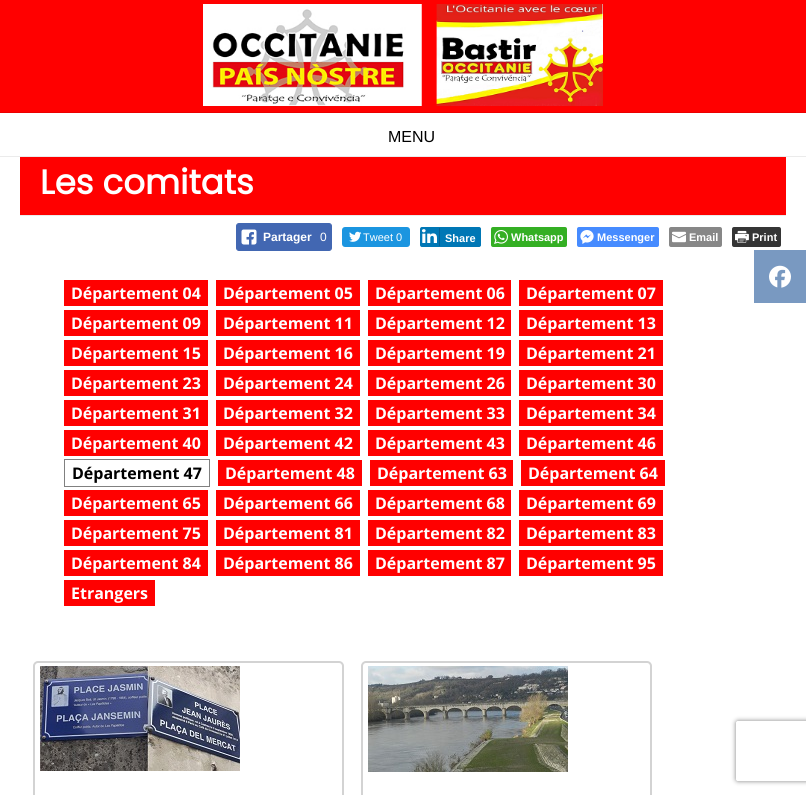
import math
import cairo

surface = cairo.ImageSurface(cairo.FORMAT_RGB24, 806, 795)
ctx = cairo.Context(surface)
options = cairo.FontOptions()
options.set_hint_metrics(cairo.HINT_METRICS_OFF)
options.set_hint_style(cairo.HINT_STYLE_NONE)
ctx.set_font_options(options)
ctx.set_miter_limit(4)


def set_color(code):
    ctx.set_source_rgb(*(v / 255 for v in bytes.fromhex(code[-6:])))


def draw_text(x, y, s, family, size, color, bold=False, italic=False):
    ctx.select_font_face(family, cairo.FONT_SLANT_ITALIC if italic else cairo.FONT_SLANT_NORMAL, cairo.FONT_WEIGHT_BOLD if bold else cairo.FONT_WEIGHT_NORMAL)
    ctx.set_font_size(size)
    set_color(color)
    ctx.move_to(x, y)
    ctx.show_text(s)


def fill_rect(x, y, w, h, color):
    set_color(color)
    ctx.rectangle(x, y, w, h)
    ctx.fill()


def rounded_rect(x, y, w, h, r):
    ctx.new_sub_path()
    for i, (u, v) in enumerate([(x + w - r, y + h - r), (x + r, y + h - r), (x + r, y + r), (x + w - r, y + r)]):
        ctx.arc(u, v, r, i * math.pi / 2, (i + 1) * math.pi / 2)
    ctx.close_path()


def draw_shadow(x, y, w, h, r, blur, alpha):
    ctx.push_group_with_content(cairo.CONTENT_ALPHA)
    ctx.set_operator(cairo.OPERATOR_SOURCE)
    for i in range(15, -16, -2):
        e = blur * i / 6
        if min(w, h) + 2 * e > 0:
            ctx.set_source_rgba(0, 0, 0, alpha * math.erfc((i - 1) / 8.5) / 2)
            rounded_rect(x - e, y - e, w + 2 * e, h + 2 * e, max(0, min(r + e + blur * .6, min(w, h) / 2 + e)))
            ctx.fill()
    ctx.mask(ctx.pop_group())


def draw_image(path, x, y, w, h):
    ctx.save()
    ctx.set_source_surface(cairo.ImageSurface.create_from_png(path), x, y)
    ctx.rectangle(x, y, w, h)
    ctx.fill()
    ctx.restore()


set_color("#ffffff")
ctx.paint()
fill_rect(0, 156, 806, 1, "#ebebeb")
fill_rect(0, 0, 806, 112, "#ff0000")
draw_image("assets/img1.png", 203, 4, 400, 102)
fill_rect(0, 112, 806, 1, "#eb0000")
draw_text(388, 142, "MENU", "Liberation Sans", 16, "#000000")
fill_rect(20, 215, 766, 1, "#ebebeb")
fill_rect(20, 157, 766, 58, "#ff0000")
draw_text(40, 194, "Les comitats", "Poppins", 34, "#ffffff", bold=True)
set_color("#4267b2")
rounded_rect(236.5, 223.5, 95, 27, 2.5)
ctx.fill_preserve()
ctx.set_line_width(1)
ctx.stroke()
draw_image("assets/img2.png", 241, 229, 16, 16)
draw_text(263, 241, "Partager", "Liberation Sans", 12, "#ffffff", bold=True)
draw_text(320, 241, "0", "Liberation Sans", 12, "#ffffff")
set_color("#1b95e0")
rounded_rect(342, 227, 68, 20, 3)
ctx.fill()
draw_image("assets/img3.png", 349, 231, 13, 11)
draw_text(363, 241, "Tweet 0", "Liberation Sans", 11, "#ffffff")
set_color("#0077b5")
rounded_rect(421.5, 227.5, 59, 19, 1.5)
ctx.fill_preserve()
ctx.stroke()
rounded_rect(420, 227, 20, 20, 2)
ctx.fill()
fill_rect(439, 228, 1, 18, "#066094")
draw_image("assets/img4.png", 422, 229, 15, 14)
draw_text(445, 242, "Share", "Liberation Sans", 11, "#ffffff", bold=True)
set_color("#34af23")
rounded_rect(491, 227, 76, 20, 2)
ctx.fill()
draw_image("assets/img5.png", 494, 230, 14, 14)
draw_text(511, 241, "Whatsapp", "Liberation Sans", 11, "#ffffff", bold=True)
set_color("#468bff")
rounded_rect(577, 227, 82, 20, 2)
ctx.fill()
draw_image("assets/img6.png", 580, 230, 14, 14)
draw_text(597, 241, "Messenger", "Liberation Sans", 11, "#ffffff", bold=True)
set_color("#878787")
rounded_rect(669, 227, 53, 20, 2)
ctx.fill()
draw_image("assets/img7.png", 672, 231, 14, 12)
draw_text(689, 241, "Email", "Liberation Sans", 11, "#ffffff", bold=True)
set_color("#353535")
rounded_rect(732, 227, 49, 20, 2)
ctx.fill()
draw_image("assets/img8.png", 735, 230, 14, 13)
draw_text(752, 241, "Print", "Liberation Sans", 11, "#ffffff", bold=True)
fill_rect(64, 280, 144, 26, "#ff0000")
draw_text(71, 299, "Département 04", "Open Sans", 16, "#ffffff", bold=True)
fill_rect(216, 280, 144, 26, "#ff0000")
draw_text(223, 299, "Département 05", "Open Sans", 16, "#ffffff", bold=True)
fill_rect(368, 280, 143, 26, "#ff0000")
draw_text(375, 299, "Département 06", "Open Sans", 16, "#ffffff", bold=True)
fill_rect(519, 280, 144, 26, "#ff0000")
draw_text(526, 299, "Département 07", "Open Sans", 16, "#ffffff", bold=True)
fill_rect(64, 310, 144, 26, "#ff0000")
draw_text(71, 329, "Département 09", "Open Sans", 16, "#ffffff", bold=True)
fill_rect(216, 310, 144, 26, "#ff0000")
draw_text(223, 329, "Département 11", "Open Sans", 16, "#ffffff", bold=True)
fill_rect(368, 310, 143, 26, "#ff0000")
draw_text(375, 329, "Département 12", "Open Sans", 16, "#ffffff", bold=True)
fill_rect(519, 310, 144, 26, "#ff0000")
draw_text(526, 329, "Département 13", "Open Sans", 16, "#ffffff", bold=True)
fill_rect(64, 340, 144, 26, "#ff0000")
draw_text(71, 359, "Département 15", "Open Sans", 16, "#ffffff", bold=True)
fill_rect(216, 340, 144, 26, "#ff0000")
draw_text(223, 359, "Département 16", "Open Sans", 16, "#ffffff", bold=True)
fill_rect(368, 340, 143, 26, "#ff0000")
draw_text(375, 359, "Département 19", "Open Sans", 16, "#ffffff", bold=True)
fill_rect(519, 340, 144, 26, "#ff0000")
draw_text(526, 359, "Département 21", "Open Sans", 16, "#ffffff", bold=True)
fill_rect(64, 370, 144, 26, "#ff0000")
draw_text(71, 389, "Département 23", "Open Sans", 16, "#ffffff", bold=True)
fill_rect(216, 370, 144, 26, "#ff0000")
draw_text(223, 389, "Département 24", "Open Sans", 16, "#ffffff", bold=True)
fill_rect(368, 370, 143, 26, "#ff0000")
draw_text(375, 389, "Département 26", "Open Sans", 16, "#ffffff", bold=True)
fill_rect(519, 370, 144, 26, "#ff0000")
draw_text(526, 389, "Département 30", "Open Sans", 16, "#ffffff", bold=True)
fill_rect(64, 400, 144, 26, "#ff0000")
draw_text(71, 419, "Département 31", "Open Sans", 16, "#ffffff", bold=True)
fill_rect(216, 400, 144, 26, "#ff0000")
draw_text(223, 419, "Département 32", "Open Sans", 16, "#ffffff", bold=True)
fill_rect(368, 400, 143, 26, "#ff0000")
draw_text(375, 419, "Département 33", "Open Sans", 16, "#ffffff", bold=True)
fill_rect(519, 400, 144, 26, "#ff0000")
draw_text(526, 419, "Département 34", "Open Sans", 16, "#ffffff", bold=True)
fill_rect(64, 430, 144, 26, "#ff0000")
draw_text(71, 449, "Département 40", "Open Sans", 16, "#ffffff", bold=True)
fill_rect(216, 430, 144, 26, "#ff0000")
draw_text(223, 449, "Département 42", "Open Sans", 16, "#ffffff", bold=True)
fill_rect(368, 430, 143, 26, "#ff0000")
draw_text(375, 449, "Département 43", "Open Sans", 16, "#ffffff", bold=True)
fill_rect(519, 430, 144, 26, "#ff0000")
draw_text(526, 449, "Département 46", "Open Sans", 16, "#ffffff", bold=True)
ctx.rectangle(64.5, 459.5, 145, 27)
set_color("#808080")
ctx.stroke()
draw_text(72, 479, "Département 47", "Open Sans", 16, "#000000", bold=True)
fill_rect(218, 460, 144, 26, "#ff0000")
draw_text(225, 479, "Département 48", "Open Sans", 16, "#ffffff", bold=True)
fill_rect(370, 460, 143, 26, "#ff0000")
draw_text(377, 479, "Département 63", "Open Sans", 16, "#ffffff", bold=True)
fill_rect(521, 460, 144, 26, "#ff0000")
draw_text(528, 479, "Département 64", "Open Sans", 16, "#ffffff", bold=True)
fill_rect(64, 490, 144, 26, "#ff0000")
draw_text(71, 509, "Département 65", "Open Sans", 16, "#ffffff", bold=True)
fill_rect(216, 490, 144, 26, "#ff0000")
draw_text(223, 509, "Département 66", "Open Sans", 16, "#ffffff", bold=True)
fill_rect(368, 490, 143, 26, "#ff0000")
draw_text(375, 509, "Département 68", "Open Sans", 16, "#ffffff", bold=True)
fill_rect(519, 490, 144, 26, "#ff0000")
draw_text(526, 509, "Département 69", "Open Sans", 16, "#ffffff", bold=True)
fill_rect(64, 520, 144, 26, "#ff0000")
draw_text(71, 539, "Département 75", "Open Sans", 16, "#ffffff", bold=True)
fill_rect(216, 520, 144, 26, "#ff0000")
draw_text(223, 539, "Département 81", "Open Sans", 16, "#ffffff", bold=True)
fill_rect(368, 520, 143, 26, "#ff0000")
draw_text(375, 539, "Département 82", "Open Sans", 16, "#ffffff", bold=True)
fill_rect(519, 520, 144, 26, "#ff0000")
draw_text(526, 539, "Département 83", "Open Sans", 16, "#ffffff", bold=True)
fill_rect(64, 550, 144, 26, "#ff0000")
draw_text(71, 569, "Département 84", "Open Sans", 16, "#ffffff", bold=True)
fill_rect(216, 550, 144, 26, "#ff0000")
draw_text(223, 569, "Département 86", "Open Sans", 16, "#ffffff", bold=True)
fill_rect(368, 550, 143, 26, "#ff0000")
draw_text(375, 569, "Département 87", "Open Sans", 16, "#ffffff", bold=True)
fill_rect(519, 550, 144, 26, "#ff0000")
draw_text(526, 569, "Département 95", "Open Sans", 16, "#ffffff", bold=True)
fill_rect(64, 580, 91, 26, "#ff0000")
draw_text(71, 599, "Etrangers", "Open Sans", 16, "#ffffff", bold=True)
rounded_rect(34, 662, 309, 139, 4)
set_color("#d3d3d3")
ctx.set_line_width(2)
ctx.stroke()
draw_image("assets/img9.png", 40, 666, 200, 105)
rounded_rect(362, 662, 289, 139, 4)
ctx.stroke()
draw_image("assets/img10.png", 368, 666, 200, 106)
fill_rect(754, 250, 52, 53, "#7999c1")
draw_image("assets/img11.png", 769, 265, 22, 23)
ctx.save()
ctx.set_fill_rule(cairo.FILL_RULE_EVEN_ODD)
ctx.new_path()
ctx.move_to(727, 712)
ctx.line_to(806, 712)
ctx.line_to(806, 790)
ctx.line_to(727, 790)
ctx.close_path()
ctx.move_to(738, 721)
ctx.line_to(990, 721)
ctx.curve_to(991, 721, 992, 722, 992, 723)
ctx.line_to(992, 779)
ctx.curve_to(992, 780, 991, 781, 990, 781)
ctx.line_to(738, 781)
ctx.curve_to(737, 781, 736, 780, 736, 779)
ctx.line_to(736, 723)
ctx.curve_to(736, 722, 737, 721, 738, 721)
ctx.close_path()
ctx.clip()
set_color("#808080")
draw_shadow(736, 721, 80, 60, 2, 2.5, 1)
ctx.restore()
surface.write_to_png("output.png")
